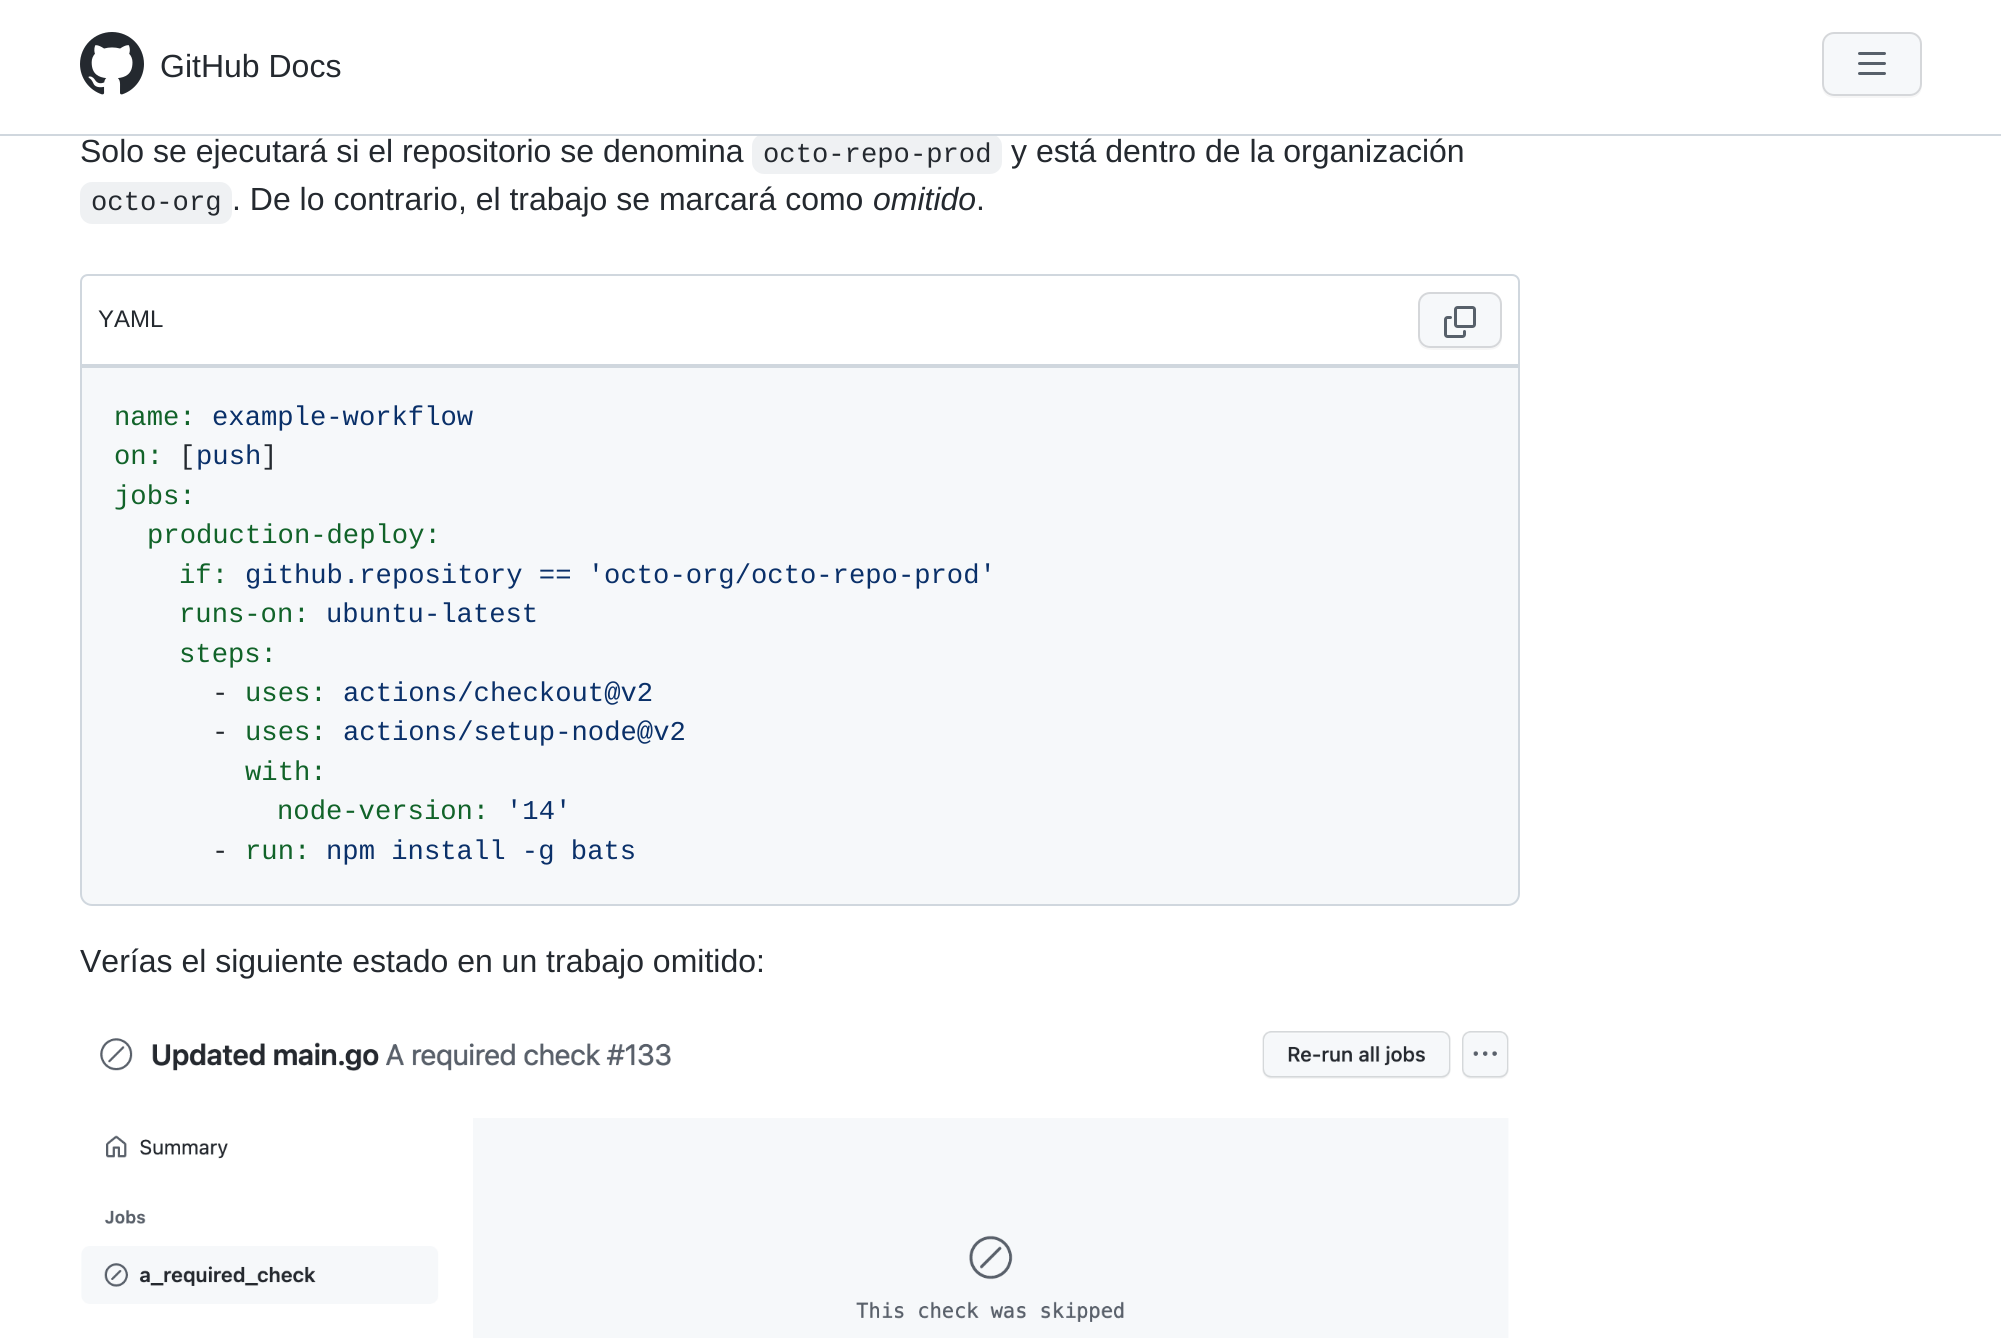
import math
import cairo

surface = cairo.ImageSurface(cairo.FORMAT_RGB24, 2001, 1338)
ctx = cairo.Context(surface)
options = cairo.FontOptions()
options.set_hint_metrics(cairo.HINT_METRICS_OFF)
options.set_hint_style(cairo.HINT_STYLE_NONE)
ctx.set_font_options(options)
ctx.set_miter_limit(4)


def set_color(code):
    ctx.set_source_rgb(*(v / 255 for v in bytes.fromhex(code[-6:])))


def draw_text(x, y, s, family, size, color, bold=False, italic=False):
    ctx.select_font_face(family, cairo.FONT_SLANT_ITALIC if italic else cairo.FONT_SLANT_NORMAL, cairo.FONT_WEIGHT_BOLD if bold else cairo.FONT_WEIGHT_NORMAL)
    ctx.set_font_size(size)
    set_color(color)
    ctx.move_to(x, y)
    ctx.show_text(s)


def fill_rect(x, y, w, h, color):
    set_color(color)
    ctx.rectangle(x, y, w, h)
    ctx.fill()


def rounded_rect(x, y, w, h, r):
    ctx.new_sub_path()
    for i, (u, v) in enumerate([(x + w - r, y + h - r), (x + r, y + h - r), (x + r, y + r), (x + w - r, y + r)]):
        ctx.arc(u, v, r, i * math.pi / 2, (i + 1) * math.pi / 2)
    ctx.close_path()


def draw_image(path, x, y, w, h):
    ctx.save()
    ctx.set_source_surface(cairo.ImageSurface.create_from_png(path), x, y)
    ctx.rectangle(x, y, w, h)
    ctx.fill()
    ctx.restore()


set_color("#ffffff")
ctx.paint()
set_color("#eff1f3")
rounded_rect(752, 134, 250, 40, 12)
ctx.fill()
fill_rect(0, 134, 2001, 2, "#d0d7de")
draw_image("assets/img1.png", 80, 32, 64, 63)
draw_text(160, 77, "GitHub Docs", "Liberation Sans", 32, "#24292f")
set_color("#f6f6f6")
ctx.new_path()
ctx.move_to(1822, 84)
ctx.curve_to(1822, 100, 1834, 98, 1847, 98)
ctx.line_to(1897, 98)
ctx.curve_to(1910, 98, 1922, 100, 1922, 84)
ctx.curve_to(1922, 91, 1917, 96, 1910, 96)
ctx.line_to(1834, 96)
ctx.curve_to(1827, 96, 1822, 91, 1822, 84)
ctx.close_path()
ctx.fill()
set_color("#f6f8fa")
rounded_rect(1822, 32, 100, 64, 12)
ctx.fill()
rounded_rect(1823, 33, 98, 62, 11)
ctx.set_source_rgba(0.106, 0.122, 0.141, 0.15)
ctx.stroke()
draw_image("assets/img2.png", 1858, 52, 28, 23)
draw_text(80, 162, "Solo se ejecutará si el repositorio se denomina", "Liberation Sans", 32, "#24292f")
draw_text(763, 162, "octo-repo-prod", "Liberation Mono", 27.2, "#24292f")
draw_text(1011, 162, "y está dentro de la organización", "Liberation Sans", 32, "#24292f")
set_color("#eff1f3")
rounded_rect(80, 182, 152, 42, 12)
ctx.fill()
draw_text(91, 210, "octo-org", "Liberation Mono", 27.2, "#24292f")
draw_text(232, 210, ". De lo contrario, el trabajo se marcará como", "Liberation Sans", 32, "#24292f")
draw_text(873, 210, "omitido", "Liberation Sans", 32, "#24292f", italic=True)
draw_text(976, 210, ".", "Liberation Sans", 32, "#24292f")
ctx.new_path()
ctx.move_to(88, 275)
ctx.line_to(1512, 275)
ctx.curve_to(1516, 275, 1519, 278, 1519, 282)
ctx.line_to(1519, 365)
ctx.line_to(81, 365)
ctx.line_to(81, 282)
ctx.curve_to(81, 278, 84, 275, 88, 275)
ctx.close_path()
set_color("#d0d7de")
ctx.stroke()
draw_text(98, 327, "YAML", "Liberation Sans", 24, "#24292f")
set_color("#f6f6f6")
ctx.new_path()
ctx.move_to(1418, 336)
ctx.curve_to(1418, 351, 1428, 350, 1440, 350)
ctx.line_to(1480, 350)
ctx.curve_to(1492, 350, 1502, 351, 1502, 336)
ctx.curve_to(1502, 343, 1497, 348, 1490, 348)
ctx.line_to(1430, 348)
ctx.curve_to(1423, 348, 1418, 343, 1418, 336)
ctx.close_path()
ctx.fill()
set_color("#f6f8fa")
rounded_rect(1418, 292, 84, 56, 12)
ctx.fill()
rounded_rect(1419, 293, 82, 54, 11)
ctx.set_source_rgba(0.106, 0.122, 0.141, 0.15)
ctx.stroke()
draw_image("assets/img3.png", 1444, 306, 32, 32)
set_color("#f6f8fa")
ctx.new_path()
ctx.move_to(81, 367)
ctx.line_to(1519, 367)
ctx.line_to(1519, 894)
ctx.curve_to(1519, 900, 1514, 905, 1508, 905)
ctx.line_to(92, 905)
ctx.curve_to(86, 905, 81, 900, 81, 894)
ctx.close_path()
ctx.fill_preserve()
set_color("#d0d7de")
ctx.stroke()
draw_text(114, 425, "name:", "Liberation Mono", 27.2, "#116329")
draw_text(212, 425, "example-workflow", "Liberation Mono", 27.2, "#0a3069")
draw_text(114, 464, "on:", "Liberation Mono", 27.2, "#116329")
draw_text(179, 464, "[", "Liberation Mono", 27.2, "#24292f")
draw_text(196, 464, "push", "Liberation Mono", 27.2, "#0a3069")
draw_text(261, 464, "]", "Liberation Mono", 27.2, "#24292f")
draw_text(114, 504, "jobs:", "Liberation Mono", 27.2, "#116329")
draw_text(147, 543, "production-deploy:", "Liberation Mono", 27.2, "#116329")
draw_text(179, 583, "if:", "Liberation Mono", 27.2, "#116329")
draw_text(245, 583, "github.repository == 'octo-org/octo-repo-prod'", "Liberation Mono", 27.2, "#0a3069")
draw_text(179, 622, "runs-on:", "Liberation Mono", 27.2, "#116329")
draw_text(326, 622, "ubuntu-latest", "Liberation Mono", 27.2, "#0a3069")
draw_text(179, 662, "steps:", "Liberation Mono", 27.2, "#116329")
draw_text(212, 701, "-", "Liberation Mono", 27.2, "#24292f")
draw_text(245, 701, "uses:", "Liberation Mono", 27.2, "#116329")
draw_text(343, 701, "actions/checkout@v2", "Liberation Mono", 27.2, "#0a3069")
draw_text(212, 740, "-", "Liberation Mono", 27.2, "#24292f")
draw_text(245, 740, "uses:", "Liberation Mono", 27.2, "#116329")
draw_text(343, 740, "actions/setup-node@v2", "Liberation Mono", 27.2, "#0a3069")
draw_text(245, 780, "with:", "Liberation Mono", 27.2, "#116329")
draw_text(277, 819, "node-version:", "Liberation Mono", 27.2, "#116329")
draw_text(506, 819, "'14'", "Liberation Mono", 27.2, "#0a3069")
draw_text(212, 859, "-", "Liberation Mono", 27.2, "#24292f")
draw_text(245, 859, "run:", "Liberation Mono", 27.2, "#116329")
draw_text(326, 859, "npm install -g bats", "Liberation Mono", 27.2, "#0a3069")
draw_text(80, 972, "Verías el siguiente estado en un trabajo omitido:", "Liberation Sans", 32, "#24292f")
draw_image("assets/img4.png", 81, 1031, 1428, 307)
surface.write_to_png("output.png")
